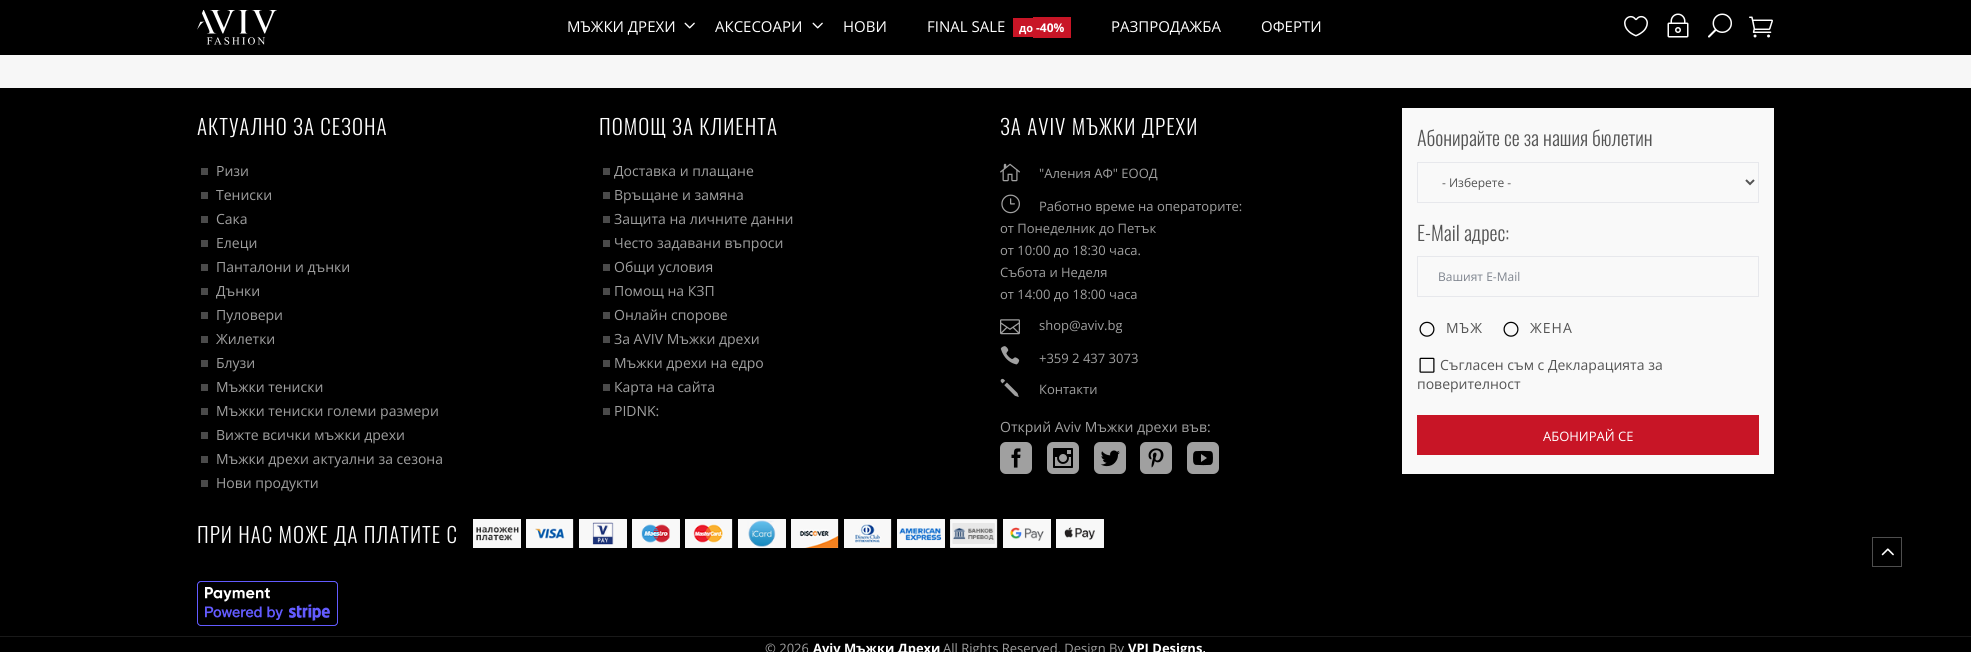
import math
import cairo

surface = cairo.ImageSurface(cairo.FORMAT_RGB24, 1971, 652)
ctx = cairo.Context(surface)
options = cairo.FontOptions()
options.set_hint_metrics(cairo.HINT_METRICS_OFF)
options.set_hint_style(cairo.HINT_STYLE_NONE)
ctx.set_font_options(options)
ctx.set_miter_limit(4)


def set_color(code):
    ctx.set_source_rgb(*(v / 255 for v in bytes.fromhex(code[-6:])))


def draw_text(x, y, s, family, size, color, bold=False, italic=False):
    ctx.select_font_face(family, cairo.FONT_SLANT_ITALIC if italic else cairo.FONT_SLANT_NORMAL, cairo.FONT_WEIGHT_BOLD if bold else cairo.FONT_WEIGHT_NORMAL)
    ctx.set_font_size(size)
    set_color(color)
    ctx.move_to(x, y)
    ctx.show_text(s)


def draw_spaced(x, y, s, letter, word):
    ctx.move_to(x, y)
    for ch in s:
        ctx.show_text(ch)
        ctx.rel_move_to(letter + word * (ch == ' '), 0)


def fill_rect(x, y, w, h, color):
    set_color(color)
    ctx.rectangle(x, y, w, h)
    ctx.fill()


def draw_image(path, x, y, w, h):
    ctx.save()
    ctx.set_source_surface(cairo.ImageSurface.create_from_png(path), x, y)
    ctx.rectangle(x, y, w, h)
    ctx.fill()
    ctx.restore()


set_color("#f7f7f7")
ctx.paint()
fill_rect(0, 0, 1971, 55, "#000000")
draw_image("assets/img1.png", 197, 10, 80, 35)
draw_text(567, 32, "МЪЖКИ ДРЕХИ", "Open Sans", 15, "#ffffff")
draw_image("assets/img2.png", 684, 22, 11, 7)
draw_text(715, 32, "АКСЕСОАРИ", "Open Sans", 15, "#ffffff")
draw_image("assets/img2.png", 812, 22, 11, 7)
draw_text(843, 32, "НОВИ", "Open Sans", 15, "#ffffff")
draw_text(927, 32, "FINAL SALE", "Open Sans", 15, "#ffffff")
fill_rect(1013, 18, 20, 19, "#c81526")
draw_text(1019, 32, "до", "Open Sans", 11, "#ffffff", bold=True)
fill_rect(1033, 17, 38, 21, "#c81526")
draw_text(1036, 32, "-40%", "Open Sans", 12, "#ffffff", bold=True)
draw_text(1111, 32, "РАЗПРОДАЖБА", "Open Sans", 15, "#ffffff")
draw_text(1261, 32, "ОФЕРТИ", "Open Sans", 15, "#ffffff")
draw_image("assets/img3.png", 1624, 15, 24, 22)
draw_image("assets/img4.png", 1667, 13, 22, 25)
draw_image("assets/img5.png", 1708, 13, 24, 25)
draw_image("assets/img6.png", 1749, 16, 24, 22)
fill_rect(0, 88, 1971, 548, "#000000")
fill_rect(0, 636, 1971, 1, "#191919")
ctx.select_font_face("Oswald Light")
ctx.set_font_size(21)
set_color("#ffffff")
draw_spaced(197, 135, "АКТУАЛНО ЗА СЕЗОНА", 1, 0)
fill_rect(201, 168, 7, 7, "#4a4a4a")
draw_text(216, 176, "Ризи", "Open Sans", 14, "#a0a0a0")
fill_rect(201, 192, 7, 7, "#4a4a4a")
draw_text(216, 200, "Тениски", "Open Sans", 14, "#a0a0a0")
fill_rect(201, 216, 7, 7, "#4a4a4a")
draw_text(216, 224, "Сака", "Open Sans", 14, "#a0a0a0")
fill_rect(201, 240, 7, 7, "#4a4a4a")
draw_text(216, 248, "Елеци", "Open Sans", 14, "#a0a0a0")
fill_rect(201, 264, 7, 7, "#4a4a4a")
draw_text(216, 272, "Панталони и дънки", "Open Sans", 14, "#a0a0a0")
fill_rect(201, 288, 7, 7, "#4a4a4a")
draw_text(216, 296, "Дънки", "Open Sans", 14, "#a0a0a0")
fill_rect(201, 312, 7, 7, "#4a4a4a")
draw_text(216, 320, "Пуловери", "Open Sans", 14, "#a0a0a0")
fill_rect(201, 336, 7, 7, "#4a4a4a")
draw_text(216, 344, "Жилетки", "Open Sans", 14, "#a0a0a0")
fill_rect(201, 360, 7, 7, "#4a4a4a")
draw_text(216, 368, "Блузи", "Open Sans", 14, "#a0a0a0")
fill_rect(201, 384, 7, 7, "#4a4a4a")
draw_text(216, 392, "Мъжки тениски", "Open Sans", 14, "#a0a0a0")
fill_rect(201, 408, 7, 7, "#4a4a4a")
draw_text(216, 416, "Мъжки тениски големи размери", "Open Sans", 14, "#a0a0a0")
fill_rect(201, 432, 7, 7, "#4a4a4a")
draw_text(216, 440, "Вижте всички мъжки дрехи", "Open Sans", 14, "#a0a0a0")
fill_rect(201, 456, 7, 7, "#4a4a4a")
draw_text(216, 464, "Мъжки дрехи актуални за сезона", "Open Sans", 14, "#a0a0a0")
fill_rect(201, 480, 7, 7, "#4a4a4a")
draw_text(216, 488, "Нови продукти", "Open Sans", 14, "#a0a0a0")
ctx.select_font_face("Oswald Light")
ctx.set_font_size(21)
set_color("#ffffff")
draw_spaced(599, 135, "ПОМОЩ ЗА КЛИЕНТА", 1, 0)
fill_rect(603, 168, 7, 7, "#4a4a4a")
draw_text(614, 176, "Доставка и плащане", "Open Sans", 14, "#a0a0a0")
fill_rect(603, 192, 7, 7, "#4a4a4a")
draw_text(614, 200, "Връщане и замяна", "Open Sans", 14, "#a0a0a0")
fill_rect(603, 216, 7, 7, "#4a4a4a")
draw_text(614, 224, "Защита на личните данни", "Open Sans", 14, "#a0a0a0")
fill_rect(603, 240, 7, 7, "#4a4a4a")
draw_text(614, 248, "Често задавани въпроси", "Open Sans", 14, "#a0a0a0")
fill_rect(603, 264, 7, 7, "#4a4a4a")
draw_text(614, 272, "Общи условия", "Open Sans", 14, "#a0a0a0")
fill_rect(603, 288, 7, 7, "#4a4a4a")
draw_text(614, 296, "Помощ на КЗП", "Open Sans", 14, "#a0a0a0")
fill_rect(603, 312, 7, 7, "#4a4a4a")
draw_text(614, 320, "Онлайн спорове", "Open Sans", 14, "#a0a0a0")
fill_rect(603, 336, 7, 7, "#4a4a4a")
draw_text(614, 344, "За AVIV Мъжки дрехи", "Open Sans", 14, "#a0a0a0")
fill_rect(603, 360, 7, 7, "#4a4a4a")
draw_text(614, 368, "Мъжки дрехи на едро", "Open Sans", 14, "#a0a0a0")
fill_rect(603, 384, 7, 7, "#4a4a4a")
draw_text(614, 392, "Карта на сайта", "Open Sans", 14, "#a0a0a0")
fill_rect(603, 408, 7, 7, "#4a4a4a")
draw_text(614, 416, "PIDNK:", "Open Sans", 14, "#a0a0a0")
ctx.select_font_face("Oswald Light")
ctx.set_font_size(21)
set_color("#ffffff")
draw_spaced(1000, 135, "ЗА AVIV МЪЖКИ ДРЕХИ", 1, 0)
draw_image("assets/img7.png", 1000, 163, 20, 19)
draw_text(1039, 178, "\"Аления АФ\" ЕООД", "Open Sans", 13, "#a0a0a0")
draw_image("assets/img8.png", 1001, 194, 19, 20)
draw_text(1039, 211, "Работно време на операторите:", "Open Sans", 13, "#a0a0a0")
draw_text(1000, 233, "от Понеделник до Петък", "Open Sans", 13, "#a0a0a0")
draw_text(1000, 255, "от 10:00 до 18:30 часа.", "Open Sans", 13, "#a0a0a0")
draw_text(1000, 277, "Събота и Неделя", "Open Sans", 13, "#a0a0a0")
draw_text(1000, 299, "от 14:00 до 18:00 часа", "Open Sans", 13, "#a0a0a0")
draw_image("assets/img9.png", 1000, 319, 20, 16)
draw_text(1039, 330, "shop@aviv.bg", "Open Sans", 13, "#a0a0a0")
draw_image("assets/img10.png", 1000, 346, 20, 19)
draw_text(1039, 363, "+359 2 437 3073", "Open Sans", 13, "#a0a0a0")
draw_image("assets/img11.png", 1000, 378, 19, 19)
draw_text(1039, 394, "Контакти", "Open Sans", 13, "#a0a0a0")
draw_text(1000, 432, "Открий Aviv Мъжки дрехи във:", "Open Sans", 14, "#a0a0a0")
draw_image("assets/img12.png", 1000, 442, 32, 32)
draw_image("assets/img13.png", 1047, 442, 32, 32)
draw_image("assets/img14.png", 1094, 442, 32, 32)
draw_image("assets/img15.png", 1140, 442, 32, 32)
draw_image("assets/img16.png", 1187, 442, 32, 32)
fill_rect(1402, 108, 372, 366, "#f9f9f9")
draw_text(1417, 146, "Абонирайте се за нашия бюлетин", "Oswald Light", 20, "#545454")
ctx.rectangle(1417.5, 162.5, 341, 40)
set_color("#e7e8ec")
ctx.set_line_width(1)
ctx.stroke()
ctx.new_path()
ctx.move_to(1746, 180)
ctx.line_to(1750, 184)
ctx.line_to(1754, 180)
set_color("#545454")
ctx.set_line_width(2)
ctx.stroke()
draw_text(1442, 187, "- Изберете -", "Open Sans", 12, "#545454")
draw_text(1417, 241, "E-Mail адрес:", "Oswald Light", 20, "#545454")
ctx.rectangle(1417.5, 256.5, 341, 40)
set_color("#e7e8ec")
ctx.set_line_width(1)
ctx.stroke()
draw_text(1438, 281, "Вашият E-Mail", "Open Sans", 12, "#7e848e")
draw_image("assets/img17.png", 1419, 321, 16, 16)
ctx.set_font_size(14)
set_color("#545454")
draw_spaced(1446, 333, "МЪЖ", 1, 0)
draw_image("assets/img17.png", 1503, 321, 16, 16)
draw_spaced(1530, 333, "ЖЕНА", 1, 0)
draw_image("assets/img18.png", 1419, 357, 16, 16)
draw_text(1440, 370, "Съгласен съм с Декларацията за", "Open Sans", 14, "#545454")
draw_text(1417, 389, "поверителност", "Open Sans", 14, "#545454")
fill_rect(1417, 415, 342, 40, "#c81526")
draw_text(1543, 441, "АБОНИРАЙ СЕ", "Open Sans", 13, "#ffffff")
ctx.select_font_face("Oswald Light")
ctx.set_font_size(21)
draw_spaced(197, 543, "ПРИ НАС МОЖЕ ДА ПЛАТИТЕ С", 1, 0)
draw_image("assets/img19.png", 473, 519, 48, 29)
draw_image("assets/img20.png", 526, 519, 48, 29)
draw_image("assets/img21.png", 579, 519, 48, 29)
draw_image("assets/img22.png", 632, 519, 48, 29)
draw_image("assets/img23.png", 685, 519, 48, 29)
draw_image("assets/img24.png", 738, 519, 48, 29)
draw_image("assets/img25.png", 791, 519, 48, 29)
draw_image("assets/img26.png", 844, 519, 48, 29)
draw_image("assets/img27.png", 897, 519, 48, 29)
draw_image("assets/img28.png", 950, 519, 48, 29)
draw_image("assets/img29.png", 1003, 519, 48, 29)
draw_image("assets/img30.png", 1056, 519, 48, 29)
draw_image("assets/img31.png", 197, 581, 141, 45)
fill_rect(0, 637, 1971, 15, "#000000")
draw_text(765, 653, "© 2026", "Open Sans", 13, "#a0a0a0")
draw_text(813, 653, "Aviv Мъжки Дрехи", "Open Sans", 13, "#ffffff", bold=True)
draw_text(943, 653, "All Rights Reserved. Design By", "Open Sans", 13, "#a0a0a0")
draw_text(1128, 653, "VPI Designs.", "Open Sans", 13, "#ffffff", bold=True)
ctx.rectangle(1872.5, 537.5, 29, 29)
set_color("#4e4e4e")
ctx.stroke()
draw_image("assets/img32.png", 1881, 548, 13, 8)
surface.write_to_png("output.png")
